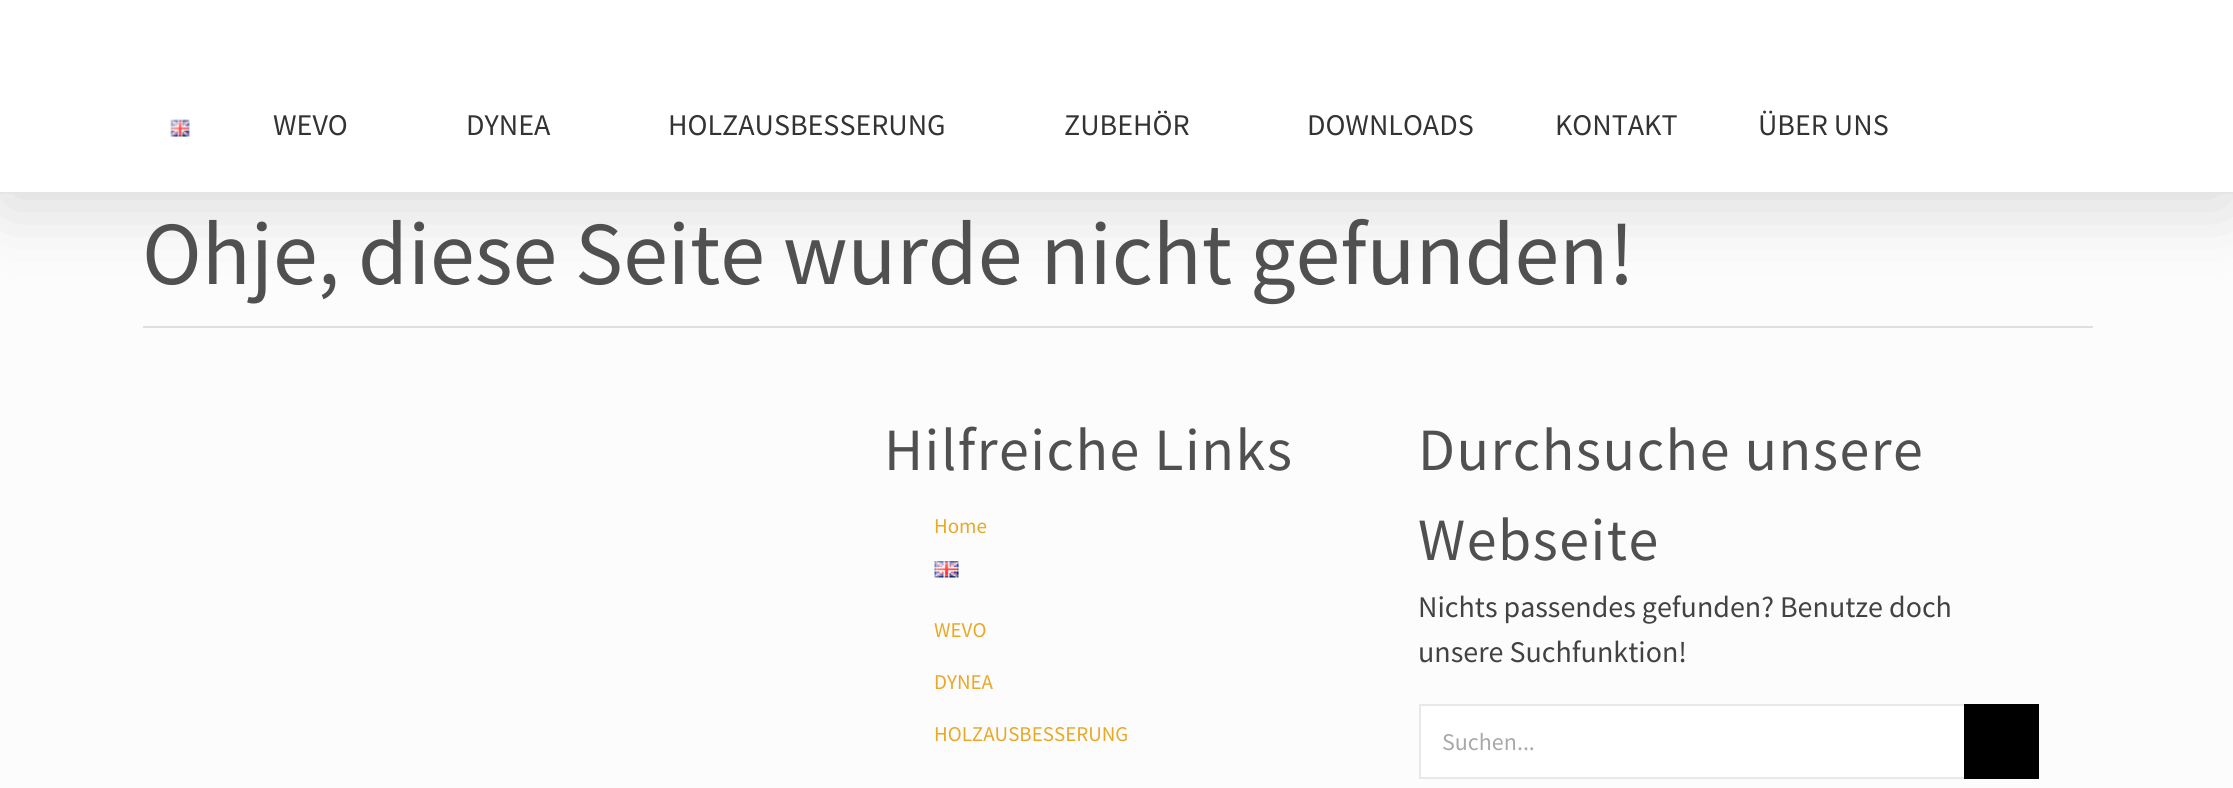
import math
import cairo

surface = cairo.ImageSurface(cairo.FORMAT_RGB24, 2233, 788)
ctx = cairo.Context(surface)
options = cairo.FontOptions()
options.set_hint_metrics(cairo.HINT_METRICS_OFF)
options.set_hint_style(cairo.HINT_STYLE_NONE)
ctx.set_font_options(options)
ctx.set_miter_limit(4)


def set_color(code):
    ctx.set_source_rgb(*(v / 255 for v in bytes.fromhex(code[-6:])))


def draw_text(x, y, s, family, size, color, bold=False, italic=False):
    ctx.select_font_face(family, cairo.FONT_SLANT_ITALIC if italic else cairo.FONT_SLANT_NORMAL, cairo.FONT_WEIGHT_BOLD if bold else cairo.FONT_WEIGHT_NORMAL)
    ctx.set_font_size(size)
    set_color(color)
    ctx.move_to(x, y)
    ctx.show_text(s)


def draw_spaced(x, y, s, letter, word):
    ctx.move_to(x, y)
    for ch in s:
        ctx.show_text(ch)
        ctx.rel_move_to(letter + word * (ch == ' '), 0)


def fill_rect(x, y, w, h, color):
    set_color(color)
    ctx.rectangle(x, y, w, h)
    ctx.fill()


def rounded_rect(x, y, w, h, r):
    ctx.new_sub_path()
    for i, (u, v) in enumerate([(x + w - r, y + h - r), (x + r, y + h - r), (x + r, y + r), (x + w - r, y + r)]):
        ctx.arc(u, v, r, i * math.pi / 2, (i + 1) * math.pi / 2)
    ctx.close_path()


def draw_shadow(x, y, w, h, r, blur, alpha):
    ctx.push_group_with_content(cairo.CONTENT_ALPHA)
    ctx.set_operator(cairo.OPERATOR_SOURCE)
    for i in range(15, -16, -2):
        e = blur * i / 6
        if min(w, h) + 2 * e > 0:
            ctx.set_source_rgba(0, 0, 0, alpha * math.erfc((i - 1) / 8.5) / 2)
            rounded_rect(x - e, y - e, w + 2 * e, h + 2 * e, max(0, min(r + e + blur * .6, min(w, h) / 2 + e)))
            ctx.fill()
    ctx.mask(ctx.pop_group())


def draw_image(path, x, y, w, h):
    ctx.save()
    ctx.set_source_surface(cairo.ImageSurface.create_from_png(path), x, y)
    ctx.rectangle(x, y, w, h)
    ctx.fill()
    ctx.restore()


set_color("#fcfcfc")
ctx.paint()
set_color("#000000")
draw_shadow(3, -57, 2228, 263, 0, 37.5, 0.14)
fill_rect(0, 0, 2233, 192, "#ffffff")
fill_rect(0, 192, 2233, 2, "#e5e5e5")
draw_image("assets/img1.png", 170, 119, 20, 18)
draw_text(273, 135, "WEVO", "Source Sans Pro", 30, "#333333")
draw_text(466, 135, "DYNEA", "Source Sans Pro", 30, "#333333")
draw_text(668, 135, "HOLZAUSBESSERUNG", "Source Sans Pro", 30, "#333333")
draw_text(1064, 135, "ZUBEHÖR", "Source Sans Pro", 30, "#333333")
draw_text(1307, 135, "DOWNLOADS", "Source Sans Pro", 30, "#333333")
draw_text(1555, 135, "KONTAKT", "Source Sans Pro", 30, "#333333")
draw_text(1758, 135, "ÜBER UNS", "Source Sans Pro", 30, "#333333")
fill_rect(143, 326, 1950, 2, "#e0dede")
draw_text(142, 284, "Ohje, diese Seite wurde nicht gefunden!", "Source Sans Pro", 90, "#505050")
ctx.set_font_size(60)
draw_spaced(884, 470, "Hilfreiche Links", 1.5, 0)
draw_text(934, 533, "Home", "Source Sans Pro", 21, "#e9a825")
draw_image("assets/img2.png", 934, 561, 25, 17)
draw_text(934, 637, "WEVO", "Source Sans Pro", 21, "#e9a825")
draw_text(934, 689, "DYNEA", "Source Sans Pro", 21, "#e9a825")
draw_text(934, 741, "HOLZAUSBESSERUNG", "Source Sans Pro", 21, "#e9a825")
ctx.set_font_size(60)
set_color("#505050")
draw_spaced(1418, 470, "Durchsuche unsere", 1.5, 0)
draw_spaced(1418, 560, "Webseite", 1.5, 0)
draw_text(1418, 617, "Nichts passendes gefunden? Benutze doch", "Source Sans Pro", 30, "#424242")
draw_text(1418, 662, "unsere Suchfunktion!", "Source Sans Pro", 30, "#424242")
fill_rect(1421, 706, 543, 71, "#ffffff")
fill_rect(1419, 704, 545, 2, "#e8e8e8")
fill_rect(1419, 777, 545, 2, "#e8e8e8")
fill_rect(1419, 704, 2, 75, "#e8e8e8")
draw_text(1442, 750, "Suchen...", "Source Sans Pro", 24, "#aaa9a9")
fill_rect(1964, 704, 75, 75, "#000000")
surface.write_to_png("output.png")
